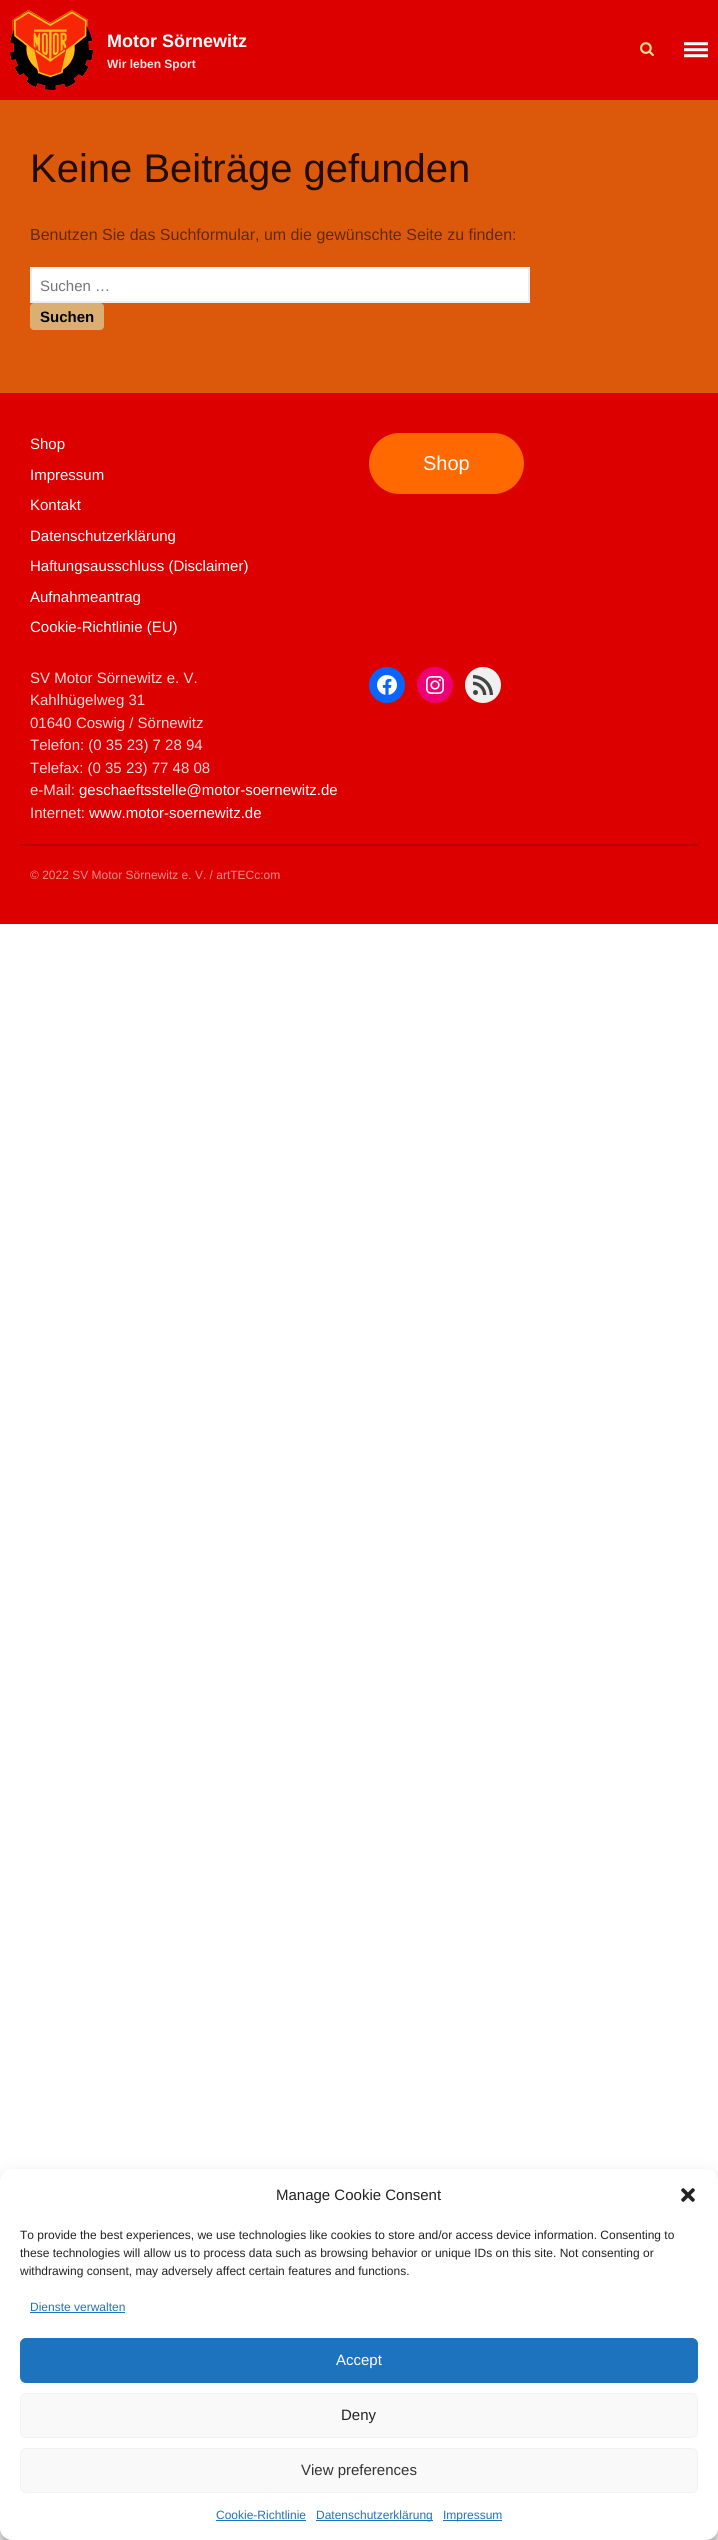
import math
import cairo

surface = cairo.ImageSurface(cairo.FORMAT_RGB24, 718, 2540)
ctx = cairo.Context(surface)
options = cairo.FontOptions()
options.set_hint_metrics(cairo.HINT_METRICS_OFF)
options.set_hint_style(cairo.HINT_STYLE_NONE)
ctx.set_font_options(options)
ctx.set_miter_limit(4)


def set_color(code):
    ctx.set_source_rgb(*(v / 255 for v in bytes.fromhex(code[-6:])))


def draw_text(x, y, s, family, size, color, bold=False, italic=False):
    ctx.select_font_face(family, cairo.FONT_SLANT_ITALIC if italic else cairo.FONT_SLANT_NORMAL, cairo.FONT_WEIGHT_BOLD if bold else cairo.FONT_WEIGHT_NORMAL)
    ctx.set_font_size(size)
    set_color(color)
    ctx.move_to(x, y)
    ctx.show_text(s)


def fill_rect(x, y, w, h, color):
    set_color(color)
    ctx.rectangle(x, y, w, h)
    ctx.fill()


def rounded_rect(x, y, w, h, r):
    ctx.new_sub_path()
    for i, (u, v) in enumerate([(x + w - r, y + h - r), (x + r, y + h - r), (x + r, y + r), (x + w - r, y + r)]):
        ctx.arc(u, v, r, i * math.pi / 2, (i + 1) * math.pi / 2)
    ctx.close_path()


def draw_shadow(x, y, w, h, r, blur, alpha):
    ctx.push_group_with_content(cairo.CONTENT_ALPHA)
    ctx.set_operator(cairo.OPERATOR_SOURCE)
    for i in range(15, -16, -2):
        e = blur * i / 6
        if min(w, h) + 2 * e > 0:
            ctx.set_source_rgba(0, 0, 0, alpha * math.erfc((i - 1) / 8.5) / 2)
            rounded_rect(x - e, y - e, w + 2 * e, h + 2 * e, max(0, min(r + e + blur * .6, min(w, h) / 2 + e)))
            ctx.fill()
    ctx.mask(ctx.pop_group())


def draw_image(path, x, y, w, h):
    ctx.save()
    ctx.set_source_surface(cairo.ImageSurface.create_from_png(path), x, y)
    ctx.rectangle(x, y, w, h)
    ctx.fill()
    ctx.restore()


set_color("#ffffff")
ctx.paint()
fill_rect(0, 0, 718, 100, "#dc0000")
draw_image("assets/img1.png", 10, 10, 83, 80)
draw_text(107, 47, "Motor Sörnewitz", "Liberation Sans", 18, "#ffffff", bold=True)
draw_text(107, 68, "Wir leben Sport", "Liberation Sans", 12, "#fce6e6", bold=True)
draw_image("assets/img2.png", 640, 42, 14, 15)
draw_image("assets/img3.png", 684, 42, 24, 16)
fill_rect(0, 100, 718, 293, "#dc590b")
draw_text(30, 182, "Keine Beiträge gefunden", "Liberation Sans", 40, "#210d02")
draw_text(30, 240, "Benutzen Sie das Suchformular, um die gewünschte Seite zu finden:", "Liberation Sans", 16, "#632805")
set_color("#ffffff")
ctx.rectangle(31, 268, 498, 34)
ctx.fill_preserve()
set_color("#eeeeee")
ctx.stroke()
draw_text(40, 291, "Suchen …", "Liberation Sans", 15, "#757575")
set_color("#daaf71")
rounded_rect(30, 303, 74, 27, 4)
ctx.fill()
draw_text(40, 322, "Suchen", "Liberation Sans", 15, "#000000", bold=True)
fill_rect(0, 393, 718, 531, "#dc0000")
draw_text(30, 449, "Shop", "Liberation Sans", 15, "#ffffff")
draw_text(30, 480, "Impressum", "Liberation Sans", 15, "#ffffff")
draw_text(30, 510, "Kontakt", "Liberation Sans", 15, "#ffffff")
draw_text(30, 541, "Datenschutzerklärung", "Liberation Sans", 15, "#ffffff")
draw_text(30, 571, "Haftungsausschluss (Disclaimer)", "Liberation Sans", 15, "#ffffff")
draw_text(30, 602, "Aufnahmeantrag", "Liberation Sans", 15, "#ffffff")
draw_text(30, 632, "Cookie-Richtlinie (EU)", "Liberation Sans", 15, "#ffffff")
set_color("#ff6900")
rounded_rect(369, 433, 155, 61, 30.5)
ctx.fill()
draw_text(423, 470, "Shop", "Liberation Sans", 20, "#ffffff")
draw_text(30, 683, "SV Motor Sörnewitz e. V.", "Liberation Sans", 15, "#fad9d9")
draw_text(30, 705, "Kahlhügelweg 31", "Liberation Sans", 15, "#fad9d9")
draw_text(30, 728, "01640 Coswig / Sörnewitz", "Liberation Sans", 15, "#fad9d9")
draw_text(30, 750, "Telefon: (0 35 23) 7 28 94", "Liberation Sans", 15, "#fad9d9")
draw_text(30, 773, "Telefax: (0 35 23) 77 48 08", "Liberation Sans", 15, "#fad9d9")
draw_text(30, 795, "e-Mail:", "Liberation Sans", 15, "#fad9d9")
draw_text(79, 795, "geschaeftsstelle@motor-soernewitz.de", "Liberation Sans", 15, "#ffffff")
draw_text(30, 818, "Internet:", "Liberation Sans", 15, "#fad9d9")
draw_text(89, 818, "www.motor-soernewitz.de", "Liberation Sans", 15, "#ffffff")
set_color("#0866ff")
ctx.new_path()
ctx.arc(387, 685, 18, 0, 2 * math.pi)
ctx.fill()
draw_image("assets/img4.png", 377, 675, 20, 20)
set_color("#f00075")
ctx.arc(435, 685, 18, 0, 2 * math.pi)
ctx.fill()
draw_image("assets/img5.png", 426, 676, 18, 18)
set_color("#f0f0f0")
ctx.arc(483, 685, 18, 0, 2 * math.pi)
ctx.fill()
draw_image("assets/img6.png", 473, 675, 20, 20)
fill_rect(20, 844, 678, 2, "#bb0000")
draw_text(30, 879, "© 2022 SV Motor Sörnewitz e. V. / artTECc:om", "Liberation Sans", 12, "#ef8c8c")
set_color("#000000")
draw_shadow(0, 2175, 718, 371, 12, 3, 0.23)
draw_shadow(0, 2179, 718, 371, 12, 10, 0.19)
set_color("#ffffff")
rounded_rect(0, 2169, 718, 371, 12)
ctx.fill()
draw_text(276, 2200, "Manage Cookie Consent", "Liberation Sans", 15, "#222222")
draw_image("assets/img7.png", 681, 2188, 14, 14)
draw_text(20, 2239, "To provide the best experiences, we use technologies like cookies to store and/or access device information. Consenting to", "Liberation Sans", 12, "#222222")
draw_text(20, 2257, "these technologies will allow us to process data such as browsing behavior or unique IDs on this site. Not consenting or", "Liberation Sans", 12, "#222222")
draw_text(20, 2275, "withdrawing consent, may adversely affect certain features and functions.", "Liberation Sans", 12, "#222222")
draw_text(30, 2311, "Dienste verwalten", "Liberation Sans", 12, "#1e73be")
fill_rect(30, 2312, 95, 1, "#1e73be")
rounded_rect(20.5, 2338.5, 677, 44, 5.5)
ctx.fill_preserve()
ctx.set_line_width(1)
ctx.stroke()
draw_text(336, 2365, "Accept", "Liberation Sans", 15, "#ffffff")
set_color("#f9f9f9")
rounded_rect(20.5, 2393.5, 677, 44, 5.5)
ctx.fill_preserve()
set_color("#f2f2f2")
ctx.stroke()
draw_text(341, 2420, "Deny", "Liberation Sans", 15, "#222222")
set_color("#f9f9f9")
rounded_rect(20.5, 2448.5, 677, 44, 5.5)
ctx.fill_preserve()
set_color("#f2f2f2")
ctx.stroke()
draw_text(301, 2475, "View preferences", "Liberation Sans", 15, "#333333")
draw_text(216, 2519, "Cookie-Richtlinie", "Liberation Sans", 12, "#1e73be")
fill_rect(216, 2520, 90, 1, "#1e73be")
fill_rect(316, 2520, 117, 1, "#1e73be")
draw_text(316, 2519, "Datenschutzerklärung", "Liberation Sans", 12, "#1e73be")
fill_rect(443, 2520, 59, 1, "#1e73be")
draw_text(443, 2519, "Impressum", "Liberation Sans", 12, "#1e73be")
surface.write_to_png("output.png")
